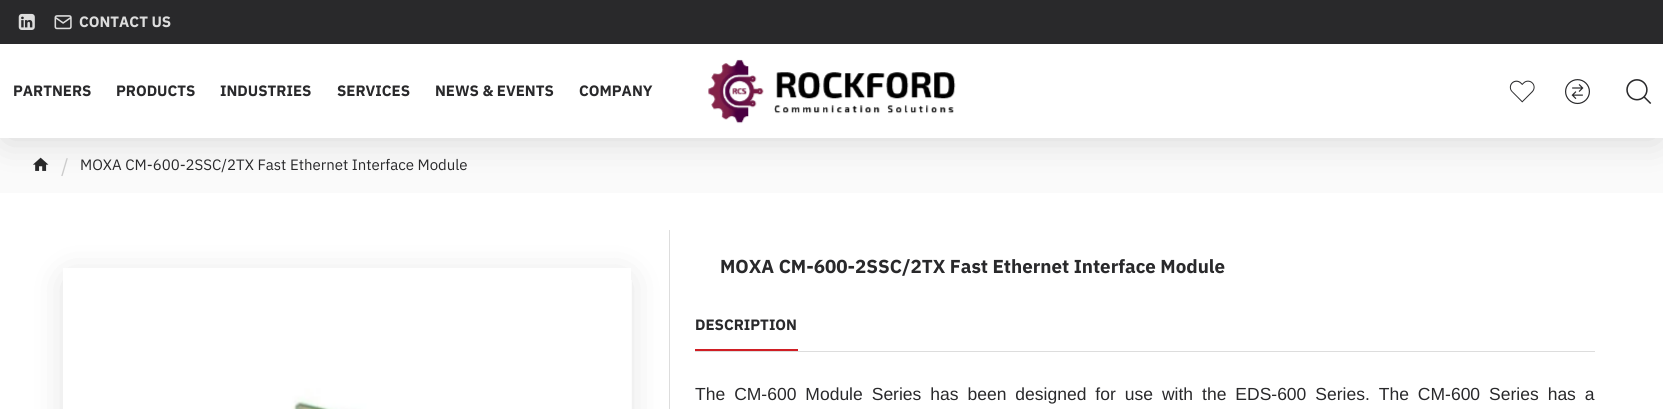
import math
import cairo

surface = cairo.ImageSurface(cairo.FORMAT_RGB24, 1663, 409)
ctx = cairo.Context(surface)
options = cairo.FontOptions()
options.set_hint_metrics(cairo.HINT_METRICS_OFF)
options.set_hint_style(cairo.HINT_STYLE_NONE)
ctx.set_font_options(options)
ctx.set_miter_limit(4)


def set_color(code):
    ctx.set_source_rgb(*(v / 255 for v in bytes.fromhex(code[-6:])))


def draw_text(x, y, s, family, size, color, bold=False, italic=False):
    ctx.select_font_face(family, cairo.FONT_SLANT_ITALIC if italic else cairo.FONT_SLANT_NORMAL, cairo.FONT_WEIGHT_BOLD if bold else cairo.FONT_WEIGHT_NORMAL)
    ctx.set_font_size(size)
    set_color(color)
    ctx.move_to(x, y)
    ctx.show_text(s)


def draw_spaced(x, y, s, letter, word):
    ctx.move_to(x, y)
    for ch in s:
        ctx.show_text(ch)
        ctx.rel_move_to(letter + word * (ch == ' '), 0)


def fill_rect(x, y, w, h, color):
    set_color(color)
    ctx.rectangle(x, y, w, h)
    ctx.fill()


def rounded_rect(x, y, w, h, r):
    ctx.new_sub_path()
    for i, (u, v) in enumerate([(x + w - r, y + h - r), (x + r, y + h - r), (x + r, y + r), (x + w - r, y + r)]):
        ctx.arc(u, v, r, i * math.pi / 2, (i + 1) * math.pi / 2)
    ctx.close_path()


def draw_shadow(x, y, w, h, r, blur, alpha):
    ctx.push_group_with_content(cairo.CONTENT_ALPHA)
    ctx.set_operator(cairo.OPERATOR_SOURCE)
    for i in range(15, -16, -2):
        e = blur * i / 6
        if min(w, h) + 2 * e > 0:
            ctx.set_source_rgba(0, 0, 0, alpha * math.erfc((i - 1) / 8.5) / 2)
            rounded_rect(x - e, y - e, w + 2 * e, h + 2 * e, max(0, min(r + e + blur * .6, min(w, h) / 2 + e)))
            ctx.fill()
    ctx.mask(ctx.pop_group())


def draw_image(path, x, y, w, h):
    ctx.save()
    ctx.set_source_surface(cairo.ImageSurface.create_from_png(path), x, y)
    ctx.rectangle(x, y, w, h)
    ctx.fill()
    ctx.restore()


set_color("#ffffff")
ctx.paint()
fill_rect(0, 138, 1663, 55, "#fafafa")
draw_image("assets/img7.png", 33, 157, 16, 14)
set_color("#000000")
draw_shadow(6, 13, 1652, 125, 0, 19, 0.15)
fill_rect(0, 44, 1663, 94, "#ffffff")
fill_rect(0, 0, 1663, 44, "#29292b")
draw_image("assets/img1.png", 18, 13, 17, 17)
draw_image("assets/img2.png", 54, 15, 18, 15)
draw_text(79, 27, "CONTACT US", "IBM Plex Sans", 15, "#dddddd", bold=True)
draw_text(13, 96, "PARTNERS", "IBM Plex Sans", 15, "#29292b", bold=True)
draw_text(116, 96, "PRODUCTS", "IBM Plex Sans", 15, "#29292b", bold=True)
draw_text(220, 96, "INDUSTRIES", "IBM Plex Sans", 15, "#29292b", bold=True)
draw_text(337, 96, "SERVICES", "IBM Plex Sans", 15, "#29292b", bold=True)
draw_text(435, 96, "NEWS & EVENTS", "IBM Plex Sans", 15, "#29292b", bold=True)
draw_text(579, 96, "COMPANY", "IBM Plex Sans", 15, "#29292b", bold=True)
draw_image("assets/img3.png", 708, 59, 248, 65)
draw_image("assets/img4.png", 1509, 80, 26, 23)
draw_image("assets/img5.png", 1565, 79, 25, 26)
draw_image("assets/img6.png", 1626, 79, 26, 25)
draw_text(61, 173, "/", "IBM Plex Sans", 20, "#cccccc")
draw_text(80, 170, "MOXA CM-600-2SSC/2TX Fast Ethernet Interface Module", "IBM Plex Sans", 15, "#29292b")
fill_rect(669, 230, 1, 179, "#dddddd")
ctx.save()
ctx.set_fill_rule(cairo.FILL_RULE_EVEN_ODD)
ctx.new_path()
ctx.move_to(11, 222)
ctx.line_to(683, 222)
ctx.line_to(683, 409)
ctx.line_to(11, 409)
ctx.close_path()
ctx.move_to(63, 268)
ctx.line_to(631, 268)
ctx.line_to(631, 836)
ctx.line_to(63, 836)
ctx.close_path()
ctx.clip()
set_color("#000000")
draw_shadow(69, 280, 556, 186, 0, 19, 0.15)
ctx.restore()
draw_image("assets/img8.png", 291, 280, 341, 129)
draw_text(720, 273, "MOXA CM-600-2SSC/2TX Fast Ethernet Interface Module", "IBM Plex Sans", 18.75, "#29292b", bold=True)
fill_rect(695, 351, 900, 1, "#dddddd")
fill_rect(695, 349, 103, 2, "#d01e24")
draw_text(695, 330, "DESCRIPTION", "IBM Plex Sans", 15, "#29292b", bold=True)
ctx.select_font_face("Liberation Sans")
ctx.set_font_size(17.5)
draw_spaced(695, 400, "The CM-600 Module Series has been designed for use with the EDS-600 Series. The CM-600 Series has a", 0, 4.1)
surface.write_to_png("output.png")
